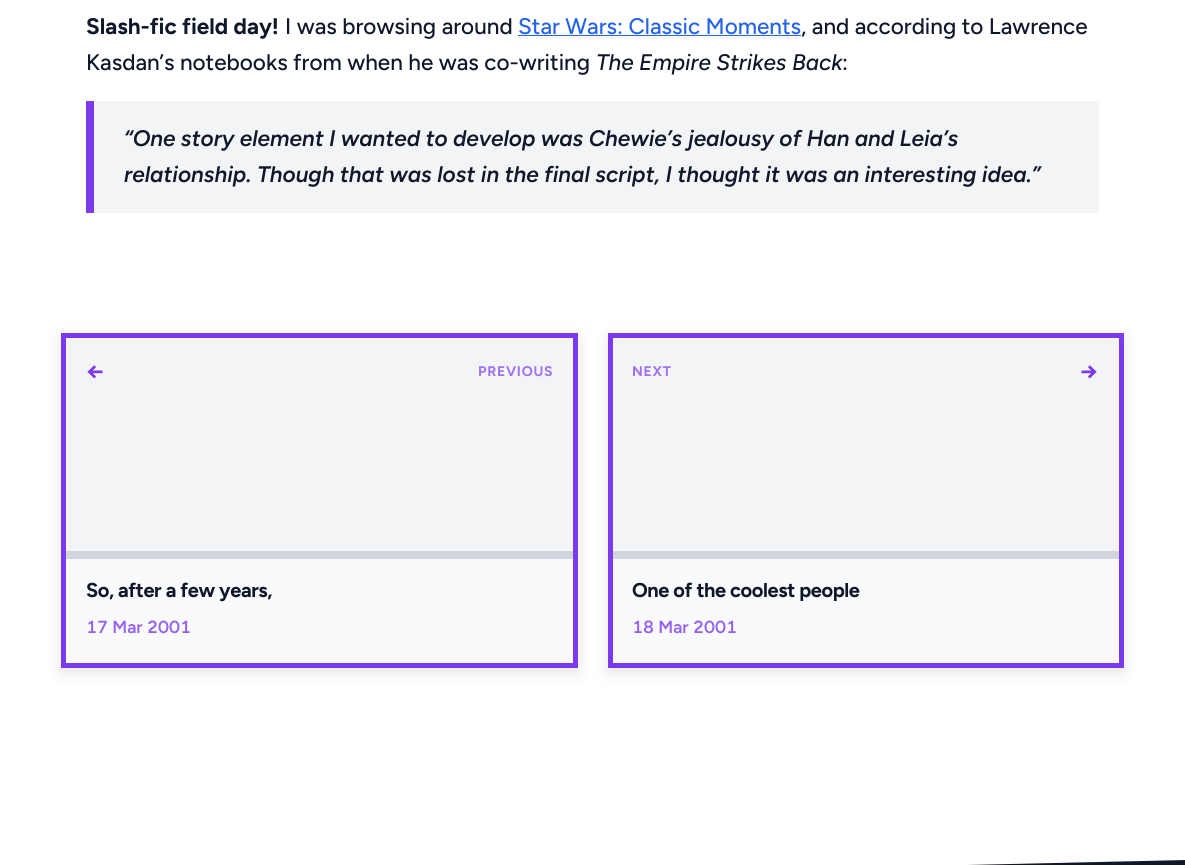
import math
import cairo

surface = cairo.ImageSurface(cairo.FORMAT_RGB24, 1185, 865)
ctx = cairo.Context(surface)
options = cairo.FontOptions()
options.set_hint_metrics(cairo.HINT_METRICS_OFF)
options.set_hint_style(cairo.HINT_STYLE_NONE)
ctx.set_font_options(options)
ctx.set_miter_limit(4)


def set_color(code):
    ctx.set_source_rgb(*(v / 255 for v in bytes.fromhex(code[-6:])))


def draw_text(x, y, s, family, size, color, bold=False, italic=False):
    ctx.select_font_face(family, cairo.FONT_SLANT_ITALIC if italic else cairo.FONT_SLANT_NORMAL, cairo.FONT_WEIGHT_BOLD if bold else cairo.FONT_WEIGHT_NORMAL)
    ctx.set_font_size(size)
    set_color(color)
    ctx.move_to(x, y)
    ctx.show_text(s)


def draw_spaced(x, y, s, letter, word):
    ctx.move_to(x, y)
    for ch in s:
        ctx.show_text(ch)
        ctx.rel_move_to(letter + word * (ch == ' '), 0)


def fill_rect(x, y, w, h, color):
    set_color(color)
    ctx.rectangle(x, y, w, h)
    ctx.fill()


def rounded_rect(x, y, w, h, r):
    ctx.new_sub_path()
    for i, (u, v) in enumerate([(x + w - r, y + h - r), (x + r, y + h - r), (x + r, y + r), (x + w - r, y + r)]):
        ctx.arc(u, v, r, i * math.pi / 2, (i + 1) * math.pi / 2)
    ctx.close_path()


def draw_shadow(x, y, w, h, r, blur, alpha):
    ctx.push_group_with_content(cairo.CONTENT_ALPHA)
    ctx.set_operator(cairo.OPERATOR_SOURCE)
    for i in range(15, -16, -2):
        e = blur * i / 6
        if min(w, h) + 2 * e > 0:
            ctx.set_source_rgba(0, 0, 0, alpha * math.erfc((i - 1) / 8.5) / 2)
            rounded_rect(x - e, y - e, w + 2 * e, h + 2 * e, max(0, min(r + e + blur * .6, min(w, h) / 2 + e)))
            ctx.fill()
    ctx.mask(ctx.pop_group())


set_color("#ffffff")
ctx.paint()
draw_text(86, 34, "Slash-fic field day!", "Figtree", 22.5, "#0f172a", bold=True)
draw_text(285, 34, "I was browsing around", "Figtree Medium", 22.5, "#0f172a")
draw_text(518, 34, "Star Wars: Classic Moments", "Figtree Medium", 22.5, "#2563eb")
fill_rect(518, 35, 283, 1, "#2563eb")
draw_text(801, 34, ", and according to Lawrence", "Figtree Medium", 22.5, "#0f172a")
draw_text(86, 70, "Kasdan’s notebooks from when he was co-writing", "Figtree Medium", 22.5, "#0f172a")
draw_text(596, 70, "The Empire Strikes Back", "Figtree Medium", 22.5, "#0f172a", italic=True)
draw_text(842, 70, ":", "Figtree Medium", 22.5, "#0f172a")
fill_rect(94, 101, 1005, 112, "#f3f4f6")
fill_rect(86, 101, 8, 112, "#7c3aed")
draw_text(124, 146, "“One story element I wanted to develop was Chewie’s jealousy of Han and Leia’s", "Figtree SemiBold", 22.5, "#0f172a", italic=True)
draw_text(124, 182, "relationship. Though that was lost in the final script, I thought it was an interesting idea.”", "Figtree SemiBold", 22.5, "#0f172a", italic=True)
set_color("#000000")
draw_shadow(61, 338, 517, 335, 0, 7.5, 0.1)
fill_rect(66, 559, 507, 104, "#f9fafb")
ctx.rectangle(63.5, 335.5, 512, 330)
set_color("#7c3aed")
ctx.set_line_width(5)
ctx.stroke()
fill_rect(66, 338, 507, 213, "#f3f4f6")
ctx.select_font_face("Figtree", cairo.FONT_SLANT_NORMAL, cairo.FONT_WEIGHT_BOLD)
ctx.set_font_size(24)
set_color("#7c3aed")
draw_spaced(86, 379, "←", 0.75, 0)
ctx.set_font_size(14)
set_color("#a072f0")
draw_spaced(478, 376, "PREVIOUS", 0.75, 0)
fill_rect(66, 551, 507, 8, "#d1d5db")
ctx.set_font_size(20)
set_color("#0f172a")
draw_spaced(86, 597, "So, after a few years,", -0.4, 0)
draw_text(86, 633, "17 Mar 2001", "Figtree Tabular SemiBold", 17.5, "#9560f0")
set_color("#000000")
draw_shadow(608, 338, 516, 335, 0, 7.5, 0.1)
fill_rect(613, 559, 506, 104, "#f9fafb")
ctx.rectangle(610.5, 335.5, 511, 330)
set_color("#7c3aed")
ctx.stroke()
fill_rect(613, 338, 506, 213, "#f3f4f6")
ctx.select_font_face("Figtree", cairo.FONT_SLANT_NORMAL, cairo.FONT_WEIGHT_BOLD)
ctx.set_font_size(14)
set_color("#a072f0")
draw_spaced(632, 376, "NEXT", 0.75, 0)
ctx.set_font_size(24)
set_color("#7c3aed")
draw_spaced(1080, 379, "→", 0.75, 0)
fill_rect(613, 551, 506, 8, "#d1d5db")
ctx.set_font_size(20)
set_color("#0f172a")
draw_spaced(632, 597, "One of the coolest people", -0.4, 0)
draw_text(632, 633, "18 Mar 2001", "Figtree Tabular SemiBold", 17.5, "#9560f0")
set_color("#0f172a")
ctx.new_path()
ctx.move_to(0, 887)
ctx.line_to(0, 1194)
ctx.line_to(1185, 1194)
ctx.line_to(1185, 860)
ctx.close_path()
ctx.fill()
surface.write_to_png("output.png")
